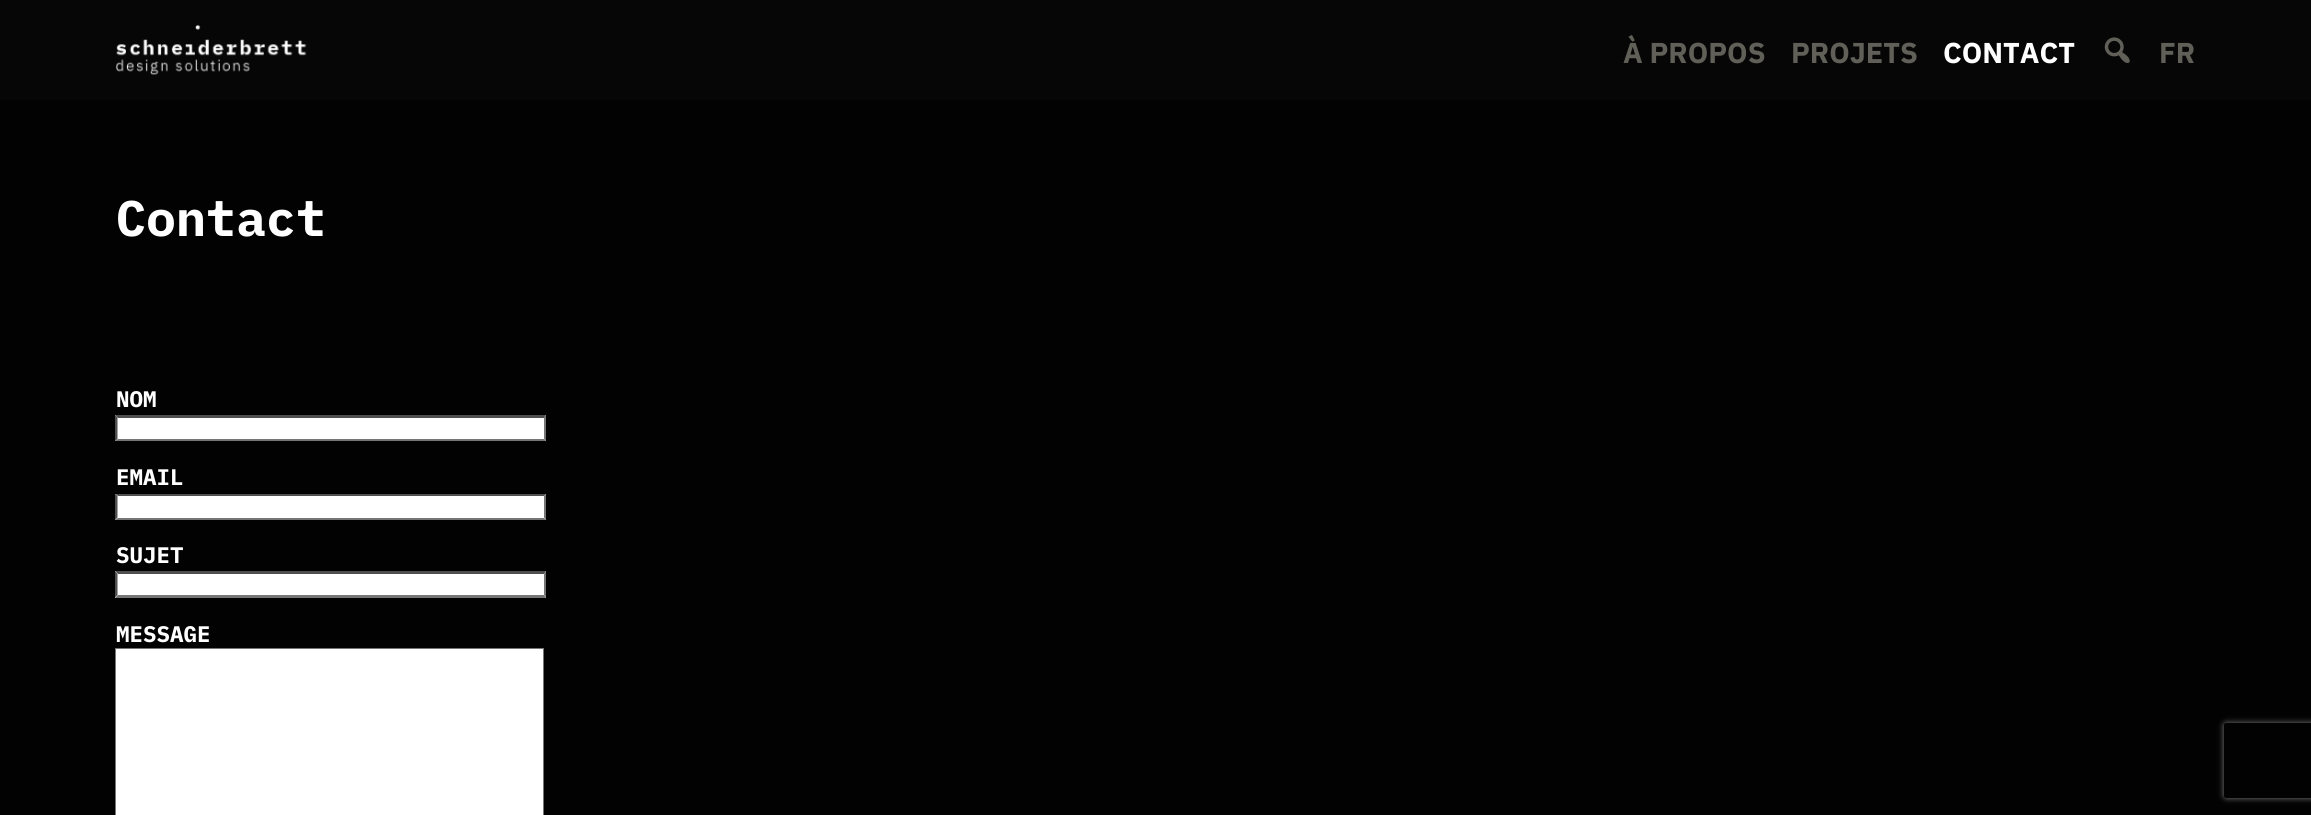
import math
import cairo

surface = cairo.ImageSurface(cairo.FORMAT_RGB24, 2311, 815)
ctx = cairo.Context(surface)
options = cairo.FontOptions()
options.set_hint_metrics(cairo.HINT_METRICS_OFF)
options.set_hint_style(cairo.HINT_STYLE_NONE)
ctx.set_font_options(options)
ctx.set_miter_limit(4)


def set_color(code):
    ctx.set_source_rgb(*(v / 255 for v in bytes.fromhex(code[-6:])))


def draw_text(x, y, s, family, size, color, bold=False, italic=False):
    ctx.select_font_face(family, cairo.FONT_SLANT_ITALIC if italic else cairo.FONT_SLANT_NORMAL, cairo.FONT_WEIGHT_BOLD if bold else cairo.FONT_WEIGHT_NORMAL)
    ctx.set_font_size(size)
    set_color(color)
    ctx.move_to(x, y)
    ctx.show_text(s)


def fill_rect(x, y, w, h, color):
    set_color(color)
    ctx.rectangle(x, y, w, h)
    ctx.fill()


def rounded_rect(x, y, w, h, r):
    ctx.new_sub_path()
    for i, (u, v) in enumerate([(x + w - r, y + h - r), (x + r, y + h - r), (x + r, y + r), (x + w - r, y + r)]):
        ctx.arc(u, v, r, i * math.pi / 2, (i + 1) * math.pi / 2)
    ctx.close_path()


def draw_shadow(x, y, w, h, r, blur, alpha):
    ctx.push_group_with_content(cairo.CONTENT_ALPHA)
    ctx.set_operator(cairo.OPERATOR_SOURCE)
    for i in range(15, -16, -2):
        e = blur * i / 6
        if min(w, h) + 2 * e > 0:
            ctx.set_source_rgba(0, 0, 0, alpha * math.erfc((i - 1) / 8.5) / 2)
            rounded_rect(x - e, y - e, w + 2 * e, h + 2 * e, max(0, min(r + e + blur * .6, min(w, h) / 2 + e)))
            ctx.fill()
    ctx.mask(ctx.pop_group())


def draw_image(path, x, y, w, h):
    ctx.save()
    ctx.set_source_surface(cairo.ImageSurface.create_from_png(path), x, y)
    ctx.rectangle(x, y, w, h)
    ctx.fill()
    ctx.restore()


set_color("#020202")
ctx.paint()
fill_rect(0, 0, 2311, 100, "#060606")
draw_image("assets/img1.png", 116, 25, 191, 50)
draw_text(1623, 63, "À PROPOS", "IBM Plex Sans", 28.75, "#606058", bold=True)
draw_text(1791, 63, "PROJETS", "IBM Plex Sans", 28.75, "#606058", bold=True)
draw_text(1943, 63, "CONTACT", "IBM Plex Sans", 28.75, "#ffffff", bold=True)
draw_image("assets/img2.png", 2104, 37, 26, 26)
draw_text(2159, 63, "FR", "IBM Plex Sans", 28.75, "#606058", bold=True)
draw_text(116, 236, "Contact", "IBM Plex Mono", 50, "#ffffff", bold=True)
draw_text(116, 407, "NOM", "IBM Plex Mono", 22.5, "#ffffff", bold=True)
fill_rect(115, 415, 431, 26, "#ffffff")
set_color("#4f4f4f")
ctx.new_path()
ctx.move_to(115, 415)
ctx.line_to(546, 415)
ctx.line_to(544, 418)
ctx.line_to(118, 418)
ctx.close_path()
ctx.fill()
set_color("#767676")
ctx.new_path()
ctx.move_to(546, 415)
ctx.line_to(546, 441)
ctx.line_to(544, 439)
ctx.line_to(544, 417.5)
ctx.close_path()
ctx.fill()
ctx.new_path()
ctx.move_to(546, 441)
ctx.line_to(115, 441)
ctx.line_to(118, 439)
ctx.line_to(544, 439)
ctx.close_path()
ctx.fill()
set_color("#4f4f4f")
ctx.new_path()
ctx.move_to(115, 441)
ctx.line_to(115, 415)
ctx.line_to(117.5, 417.5)
ctx.line_to(117.5, 439)
ctx.close_path()
ctx.fill()
draw_text(116, 485, "EMAIL", "IBM Plex Mono", 22.5, "#ffffff", bold=True)
fill_rect(115, 494, 431, 26, "#ffffff")
set_color("#4f4f4f")
ctx.new_path()
ctx.move_to(115, 494)
ctx.line_to(546, 494)
ctx.line_to(544, 496)
ctx.line_to(118, 496)
ctx.close_path()
ctx.fill()
set_color("#767676")
ctx.new_path()
ctx.move_to(546, 494)
ctx.line_to(546, 520)
ctx.line_to(544, 517.5)
ctx.line_to(544, 496)
ctx.close_path()
ctx.fill()
ctx.new_path()
ctx.move_to(546, 520)
ctx.line_to(115, 520)
ctx.line_to(118, 518)
ctx.line_to(544, 518)
ctx.close_path()
ctx.fill()
set_color("#4f4f4f")
ctx.new_path()
ctx.move_to(115, 520)
ctx.line_to(115, 494)
ctx.line_to(117.5, 496)
ctx.line_to(117.5, 517.5)
ctx.close_path()
ctx.fill()
draw_text(116, 563, "SUJET", "IBM Plex Mono", 22.5, "#ffffff", bold=True)
fill_rect(115, 571, 431, 27, "#ffffff")
set_color("#4f4f4f")
ctx.new_path()
ctx.move_to(115, 571)
ctx.line_to(546, 571)
ctx.line_to(544, 574)
ctx.line_to(118, 574)
ctx.close_path()
ctx.fill()
set_color("#767676")
ctx.new_path()
ctx.move_to(546, 571)
ctx.line_to(546, 597.5)
ctx.line_to(544, 595)
ctx.line_to(544, 574)
ctx.close_path()
ctx.fill()
ctx.new_path()
ctx.move_to(546, 598)
ctx.line_to(115, 598)
ctx.line_to(118, 595)
ctx.line_to(544, 595)
ctx.close_path()
ctx.fill()
set_color("#4f4f4f")
ctx.new_path()
ctx.move_to(115, 597.5)
ctx.line_to(115, 571)
ctx.line_to(117.5, 574)
ctx.line_to(117.5, 595)
ctx.close_path()
ctx.fill()
draw_text(116, 642, "MESSAGE", "IBM Plex Mono", 22.5, "#ffffff", bold=True)
ctx.rectangle(115.5, 648.5, 428, 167)
ctx.fill_preserve()
set_color("#767676")
ctx.set_line_width(1)
ctx.stroke()
ctx.save()
ctx.set_fill_rule(cairo.FILL_RULE_EVEN_ODD)
ctx.new_path()
ctx.move_to(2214, 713)
ctx.line_to(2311, 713)
ctx.line_to(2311, 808)
ctx.line_to(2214, 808)
ctx.close_path()
ctx.move_to(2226.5, 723)
ctx.line_to(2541.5, 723)
ctx.curve_to(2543, 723, 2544, 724, 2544, 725.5)
ctx.line_to(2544, 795.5)
ctx.curve_to(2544, 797, 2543, 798, 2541.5, 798)
ctx.line_to(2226.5, 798)
ctx.curve_to(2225, 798, 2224, 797, 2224, 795.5)
ctx.line_to(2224, 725.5)
ctx.curve_to(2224, 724, 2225, 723, 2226.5, 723)
ctx.close_path()
ctx.clip()
set_color("#808080")
draw_shadow(2224, 723, 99, 75, 2.5, 3, 1)
ctx.restore()
surface.write_to_png("output.png")
